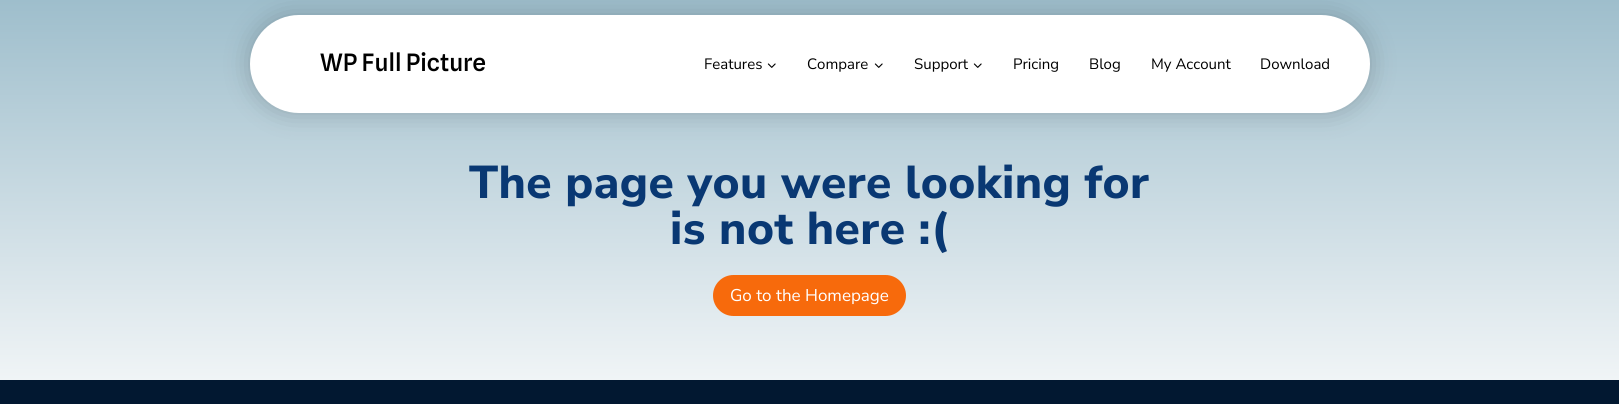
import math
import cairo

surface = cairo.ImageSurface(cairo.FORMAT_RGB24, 1619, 404)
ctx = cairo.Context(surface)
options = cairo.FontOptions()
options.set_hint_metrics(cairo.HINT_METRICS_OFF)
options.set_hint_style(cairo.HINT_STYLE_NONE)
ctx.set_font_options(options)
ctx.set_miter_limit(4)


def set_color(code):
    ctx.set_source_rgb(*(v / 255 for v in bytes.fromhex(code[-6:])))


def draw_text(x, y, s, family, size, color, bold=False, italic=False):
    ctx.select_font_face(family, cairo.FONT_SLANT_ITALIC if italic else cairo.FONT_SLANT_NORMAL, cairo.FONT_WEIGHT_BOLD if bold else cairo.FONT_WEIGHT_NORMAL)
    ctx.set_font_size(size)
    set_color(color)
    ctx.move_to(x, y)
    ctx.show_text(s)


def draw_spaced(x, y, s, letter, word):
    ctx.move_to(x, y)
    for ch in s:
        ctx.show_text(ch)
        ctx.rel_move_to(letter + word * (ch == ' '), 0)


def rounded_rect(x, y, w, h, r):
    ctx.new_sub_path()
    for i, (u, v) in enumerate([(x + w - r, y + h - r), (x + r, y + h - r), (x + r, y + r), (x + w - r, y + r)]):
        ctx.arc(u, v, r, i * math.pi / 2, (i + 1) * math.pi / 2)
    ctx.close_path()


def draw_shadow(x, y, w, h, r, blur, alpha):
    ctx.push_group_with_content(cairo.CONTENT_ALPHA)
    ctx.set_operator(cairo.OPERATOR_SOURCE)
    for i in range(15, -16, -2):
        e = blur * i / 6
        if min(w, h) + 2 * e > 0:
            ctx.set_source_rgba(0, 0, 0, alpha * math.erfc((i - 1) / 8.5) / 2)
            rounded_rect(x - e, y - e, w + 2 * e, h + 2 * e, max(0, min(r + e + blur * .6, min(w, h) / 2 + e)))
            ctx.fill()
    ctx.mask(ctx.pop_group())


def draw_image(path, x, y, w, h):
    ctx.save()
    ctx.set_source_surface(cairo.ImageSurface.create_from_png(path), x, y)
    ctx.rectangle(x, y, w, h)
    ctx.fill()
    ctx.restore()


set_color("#021831")
ctx.paint()
gradient = cairo.LinearGradient(810, 380, 810, 0)
gradient.add_color_stop_rgba(0, 0.941, 0.957, 0.965, 1)
gradient.add_color_stop_rgba(1, 0.62, 0.745, 0.8, 1)
ctx.set_source(gradient)
ctx.rectangle(0, 0, 1619, 380)
ctx.fill()
set_color("#000000")
draw_shadow(250, 15, 1120, 98, 49, 12.5, 0.2)
set_color("#ffffff")
rounded_rect(250, 15, 1120, 98, 49)
ctx.fill()
draw_text(320, 71, "WP Full Picture", "Spline Sans Medium", 24, "#000000")
draw_text(704, 69, "Features", "Nunito Sans", 15, "#000000")
draw_image("assets/img1.png", 767, 63, 9, 5)
draw_text(807, 69, "Compare", "Nunito Sans", 15, "#000000")
draw_image("assets/img1.png", 874, 63, 9, 5)
draw_text(914, 69, "Support", "Nunito Sans", 15, "#000000")
draw_image("assets/img1.png", 973, 63, 9, 5)
draw_text(1013, 69, "Pricing", "Nunito Sans", 15, "#000000")
draw_text(1089, 69, "Blog", "Nunito Sans", 15, "#000000")
draw_text(1151, 69, "My Account", "Nunito Sans", 15, "#000000")
draw_text(1260, 69, "Download", "Nunito Sans", 15, "#000000")
ctx.select_font_face("Nunito Sans ExtraBold")
ctx.set_font_size(46)
set_color("#093873")
draw_spaced(469, 198, "The page you were looking for", 0.45, 0)
draw_spaced(670, 244, "is not here :(", 0.45, 0)
set_color("#f76a0c")
rounded_rect(713, 275, 193, 41, 20.5)
ctx.fill()
draw_text(730, 301, "Go to the Homepage", "Nunito Sans", 17, "#ffffff")
surface.write_to_png("output.png")
